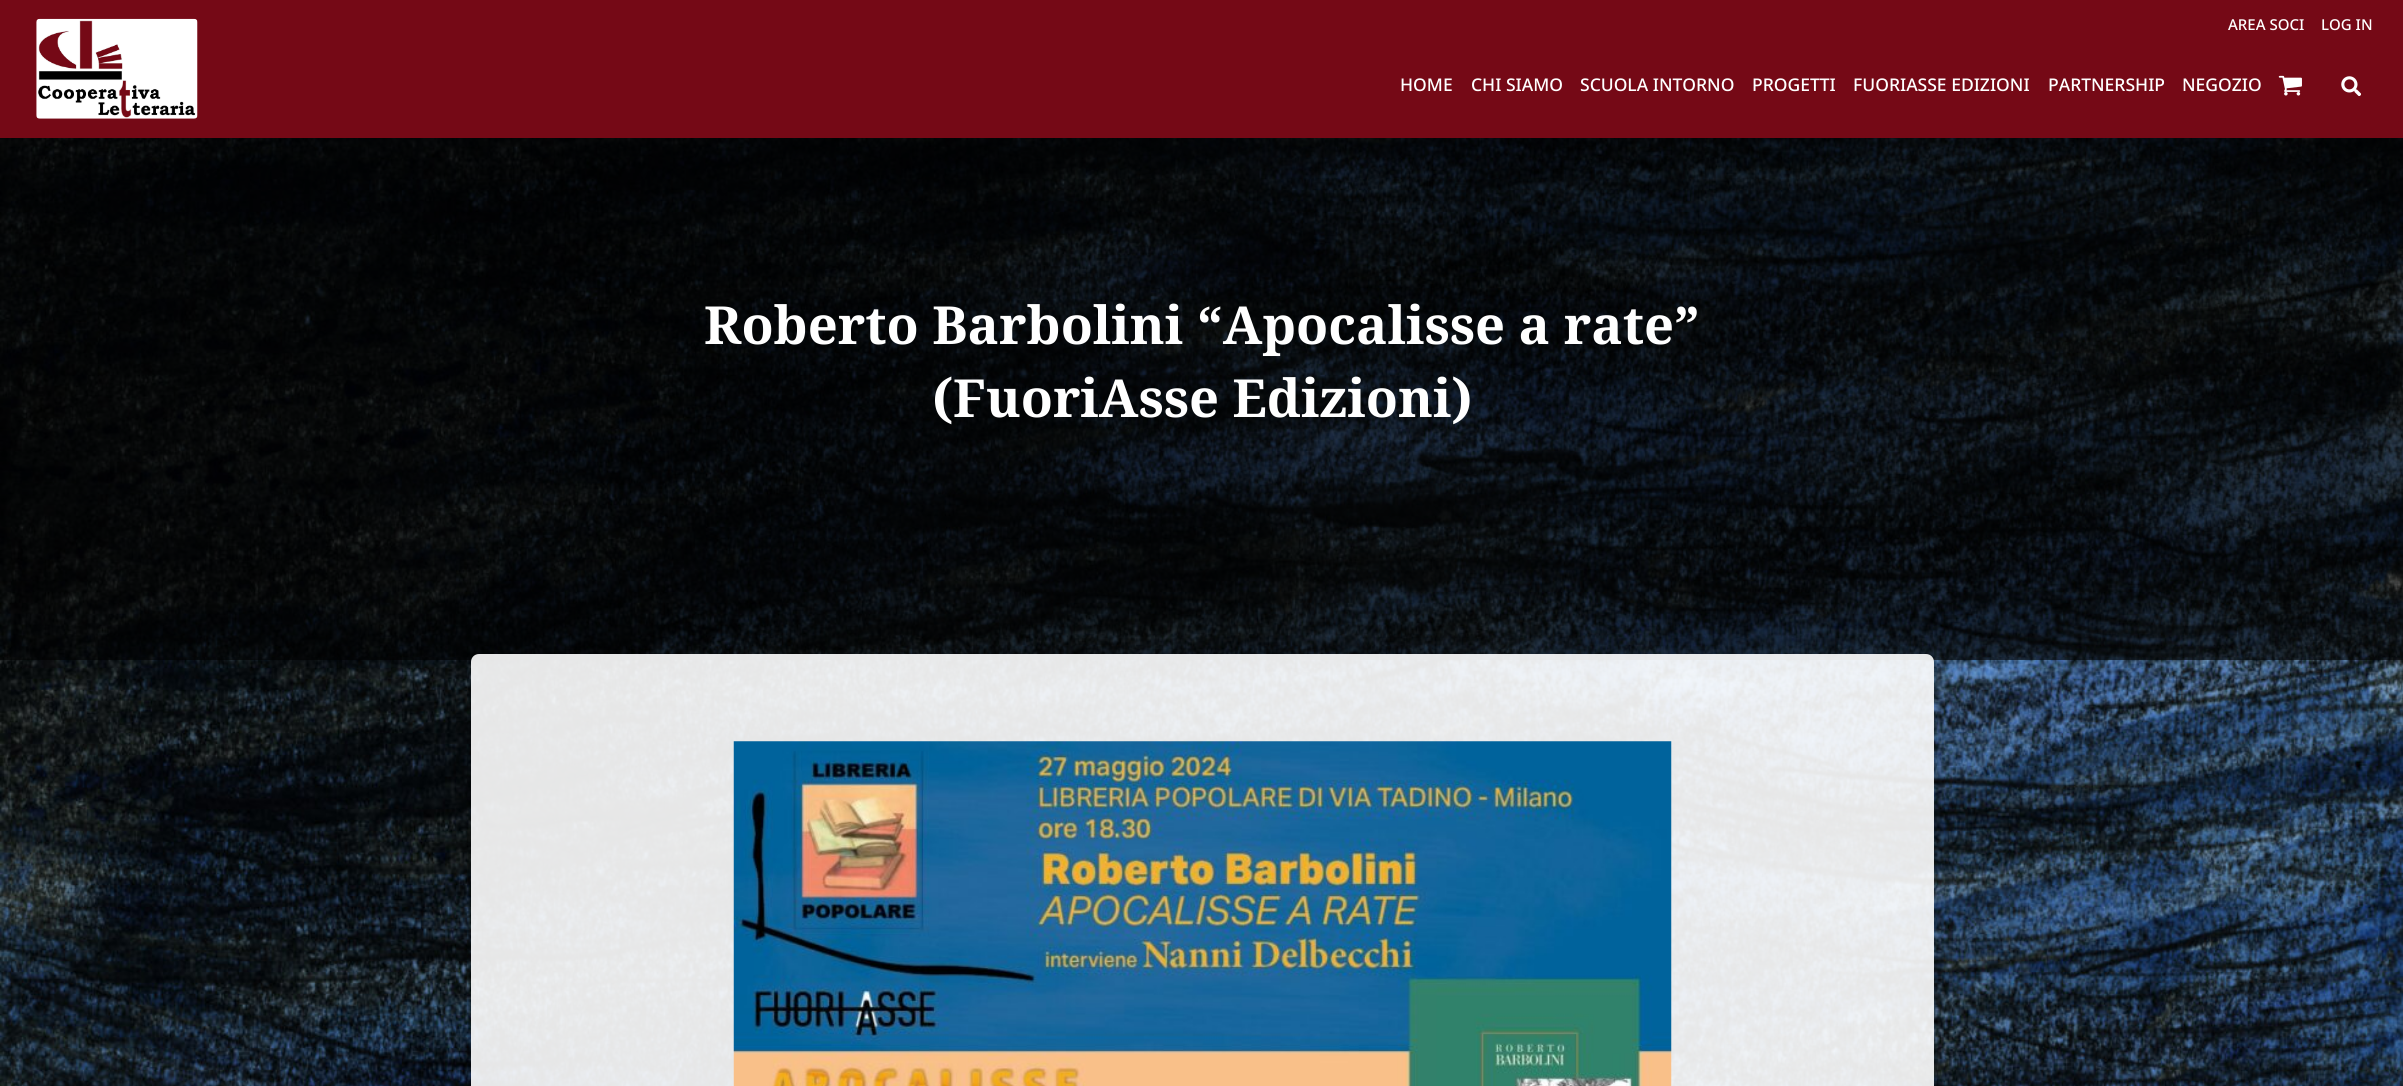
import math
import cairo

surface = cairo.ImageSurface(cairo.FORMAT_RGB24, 2403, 1086)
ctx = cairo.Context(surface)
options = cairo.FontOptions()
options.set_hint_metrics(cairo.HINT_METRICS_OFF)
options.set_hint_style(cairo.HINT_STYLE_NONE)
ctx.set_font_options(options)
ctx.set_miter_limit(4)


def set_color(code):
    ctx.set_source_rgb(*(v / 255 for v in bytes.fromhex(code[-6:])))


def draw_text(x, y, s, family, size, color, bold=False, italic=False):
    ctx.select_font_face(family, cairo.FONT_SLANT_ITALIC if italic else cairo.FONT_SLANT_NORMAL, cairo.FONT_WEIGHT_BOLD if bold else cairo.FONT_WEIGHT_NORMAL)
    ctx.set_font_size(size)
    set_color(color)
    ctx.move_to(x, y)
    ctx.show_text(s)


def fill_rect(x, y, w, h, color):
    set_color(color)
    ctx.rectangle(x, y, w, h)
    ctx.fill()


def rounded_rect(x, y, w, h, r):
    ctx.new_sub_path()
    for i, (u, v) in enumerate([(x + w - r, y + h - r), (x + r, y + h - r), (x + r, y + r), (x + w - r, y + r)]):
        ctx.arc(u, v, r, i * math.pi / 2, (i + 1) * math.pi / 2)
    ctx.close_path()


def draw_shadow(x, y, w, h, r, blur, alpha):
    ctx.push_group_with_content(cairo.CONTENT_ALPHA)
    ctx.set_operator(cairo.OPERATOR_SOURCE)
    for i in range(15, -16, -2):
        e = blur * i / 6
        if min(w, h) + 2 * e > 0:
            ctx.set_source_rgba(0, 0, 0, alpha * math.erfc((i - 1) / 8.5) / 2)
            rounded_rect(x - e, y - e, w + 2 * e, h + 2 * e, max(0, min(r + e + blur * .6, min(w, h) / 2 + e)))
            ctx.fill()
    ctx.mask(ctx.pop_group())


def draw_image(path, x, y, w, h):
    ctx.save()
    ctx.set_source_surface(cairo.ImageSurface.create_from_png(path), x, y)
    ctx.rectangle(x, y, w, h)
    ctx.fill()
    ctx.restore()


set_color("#ffffff")
ctx.paint()
draw_image("assets/img1.png", 0, 138, 2403, 948)
fill_rect(0, 0, 2403, 138, "#750916")
draw_text(2228, 30, "AREA SOCI", "Noto Sans Medium", 15, "#ffffff")
draw_text(2321, 30, "LOG IN", "Noto Sans Medium", 15, "#ffffff")
draw_image("assets/img2.png", 36, 18, 162, 101)
draw_text(1400, 91, "HOME", "Noto Sans Medium", 17.5, "#ffffff")
draw_text(1471, 91, "CHI SIAMO", "Noto Sans Medium", 17.5, "#ffffff")
draw_text(1580, 91, "SCUOLA INTORNO", "Noto Sans Medium", 17.5, "#ffffff")
draw_text(1752, 91, "PROGETTI", "Noto Sans Medium", 17.5, "#ffffff")
draw_text(1853, 91, "FUORIASSE EDIZIONI", "Noto Sans Medium", 17.5, "#ffffff")
draw_text(2048, 91, "PARTNERSHIP", "Noto Sans Medium", 17.5, "#ffffff")
draw_text(2182, 91, "NEGOZIO", "Noto Sans Medium", 17.5, "#ffffff")
draw_image("assets/img3.png", 2278, 75, 24, 21)
draw_image("assets/img4.png", 2341, 76, 20, 20)
ctx.set_source_rgba(0, 0, 0, 0.6)
ctx.rectangle(0, 138, 2403, 522)
ctx.fill()
draw_text(704, 344, "Roberto Barbolini “Apocalisse a rate”", "Noto Serif", 52.5, "#ffffff", bold=True)
draw_text(932, 417, "(FuoriAsse Edizioni)", "Noto Serif", 52.5, "#ffffff", bold=True)
ctx.save()
ctx.set_fill_rule(cairo.FILL_RULE_EVEN_ODD)
ctx.new_path()
ctx.move_to(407, 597)
ctx.line_to(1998, 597)
ctx.line_to(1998, 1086)
ctx.line_to(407, 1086)
ctx.close_path()
ctx.move_to(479, 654)
ctx.line_to(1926, 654)
ctx.curve_to(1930.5, 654, 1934, 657.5, 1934, 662)
ctx.line_to(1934, 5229)
ctx.line_to(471, 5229)
ctx.line_to(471, 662)
ctx.curve_to(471, 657.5, 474.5, 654, 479, 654)
ctx.close_path()
ctx.clip()
set_color("#000000")
draw_shadow(465, 655, 1475, 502, 14, 19, 0.12)
ctx.restore()
ctx.save()
ctx.set_fill_rule(cairo.FILL_RULE_EVEN_ODD)
ctx.new_path()
ctx.move_to(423, 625)
ctx.line_to(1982, 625)
ctx.line_to(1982, 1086)
ctx.line_to(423, 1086)
ctx.close_path()
ctx.move_to(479, 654)
ctx.line_to(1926, 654)
ctx.curve_to(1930.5, 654, 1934, 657.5, 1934, 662)
ctx.line_to(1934, 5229)
ctx.line_to(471, 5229)
ctx.line_to(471, 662)
ctx.curve_to(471, 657.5, 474.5, 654, 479, 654)
ctx.close_path()
ctx.clip()
set_color("#000000")
draw_shadow(469, 671, 1467, 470, 10, 15, 0.14)
ctx.restore()
ctx.set_source_rgba(1, 1, 1, 0.9)
ctx.new_path()
ctx.move_to(479, 654)
ctx.line_to(1926, 654)
ctx.curve_to(1930.5, 654, 1934, 657.5, 1934, 662)
ctx.line_to(1934, 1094)
ctx.line_to(471, 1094)
ctx.line_to(471, 662)
ctx.curve_to(471, 657.5, 474.5, 654, 479, 654)
ctx.close_path()
ctx.fill()
draw_image("assets/img5.png", 733, 741, 939, 345)
surface.write_to_png("output.png")
